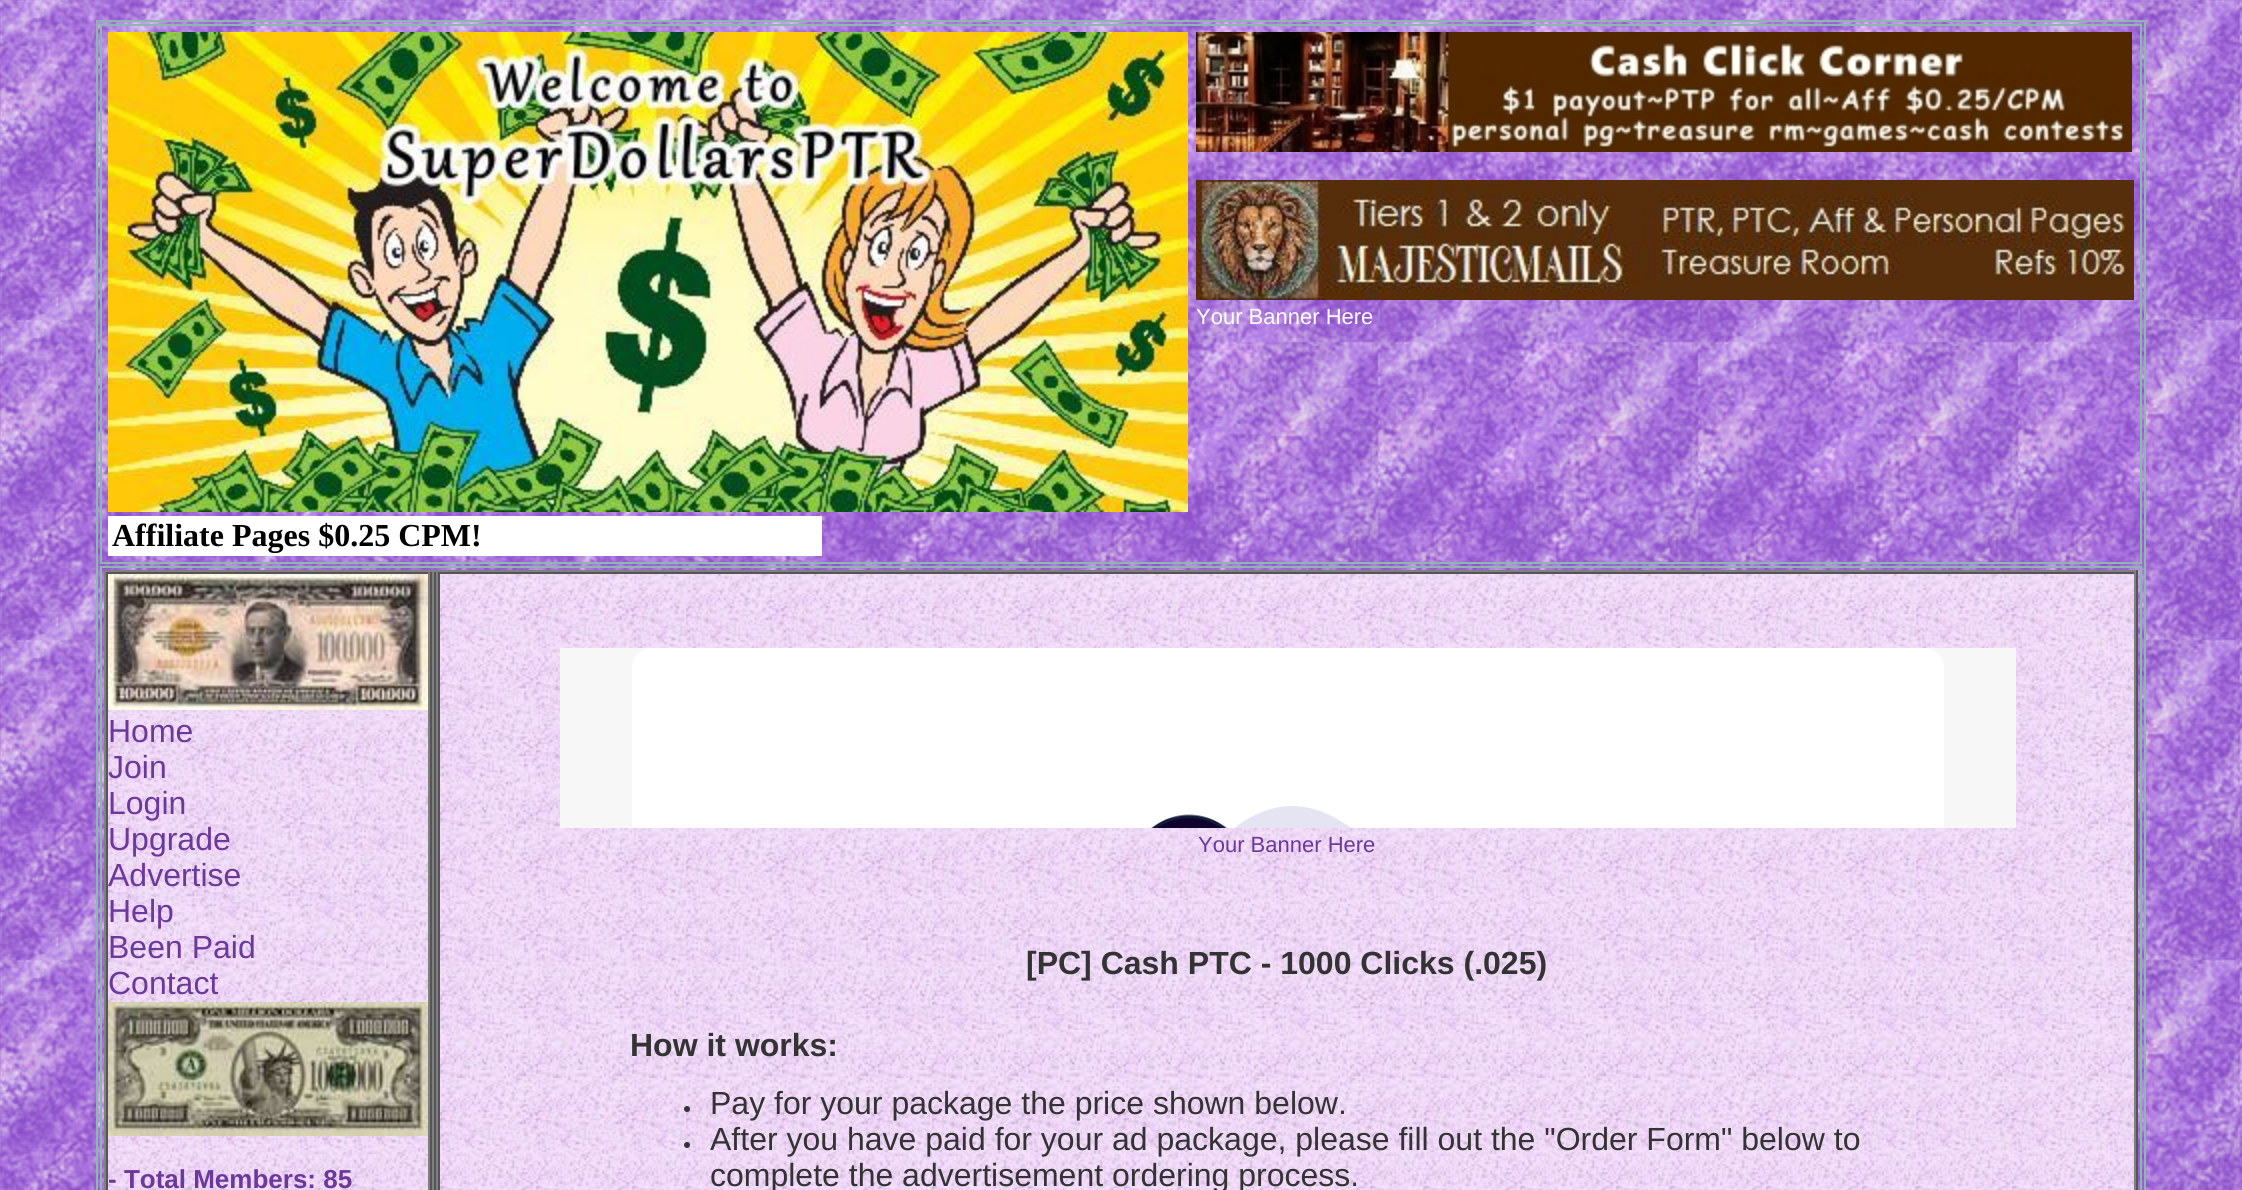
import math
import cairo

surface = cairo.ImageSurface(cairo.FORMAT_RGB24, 2242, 1190)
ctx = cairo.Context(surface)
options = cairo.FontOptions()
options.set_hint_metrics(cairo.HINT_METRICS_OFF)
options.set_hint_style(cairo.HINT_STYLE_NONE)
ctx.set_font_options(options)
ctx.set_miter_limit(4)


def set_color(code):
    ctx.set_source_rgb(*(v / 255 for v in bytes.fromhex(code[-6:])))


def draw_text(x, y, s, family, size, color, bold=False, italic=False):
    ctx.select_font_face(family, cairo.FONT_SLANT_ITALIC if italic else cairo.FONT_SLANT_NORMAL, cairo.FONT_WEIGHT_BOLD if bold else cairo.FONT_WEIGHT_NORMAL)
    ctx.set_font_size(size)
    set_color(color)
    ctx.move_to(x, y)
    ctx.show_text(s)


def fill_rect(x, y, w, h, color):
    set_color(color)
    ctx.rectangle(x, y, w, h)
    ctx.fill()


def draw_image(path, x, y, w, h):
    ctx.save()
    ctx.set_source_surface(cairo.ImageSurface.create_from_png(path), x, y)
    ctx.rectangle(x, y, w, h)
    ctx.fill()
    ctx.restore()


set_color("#ffffff")
ctx.paint()
draw_image("assets/img1.png", 0, 0, 2242, 1190)
draw_image("assets/img2.png", 98, 22, 2046, 1168)
ctx.rectangle(97, 21, 2048, 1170)
set_color("#8cb6ae")
ctx.stroke()
ctx.rectangle(101, 25, 2040, 538)
ctx.stroke()
draw_image("assets/img3.png", 1196, 32, 936, 120)
draw_image("assets/img4.png", 1196, 180, 938, 120)
draw_text(1196, 324, "Your Banner Here", "Liberation Sans", 22, "#ffffff")
draw_image("assets/img5.png", 108, 32, 1080, 480)
fill_rect(108, 516, 714, 40, "#ffffff")
draw_text(112, 546, "Affiliate Pages $0.25 CPM!", "Liberation Serif", 32, "#000000", bold=True)
ctx.rectangle(101, 567, 2040, 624)
set_color("#8cb6ae")
ctx.stroke()
draw_image("assets/img6.png", 108, 710, 320, 480)
fill_rect(104, 570, 2034, 2, "#808080")
fill_rect(2136, 570, 2, 620, "#555555")
fill_rect(104, 570, 2, 620, "#808080")
fill_rect(106, 572, 324, 2, "#555555")
fill_rect(428, 572, 2, 618, "#808080")
fill_rect(106, 572, 2, 618, "#555555")
draw_image("assets/img7.png", 108, 574, 320, 136)
draw_image("assets/img8.png", 108, 714, 320, 288)
draw_text(108, 742, "Home", "Liberation Sans", 32, "#6c389c")
draw_text(108, 778, "Join", "Liberation Sans", 32, "#6c389c")
draw_text(108, 814, "Login", "Liberation Sans", 32, "#6c389c")
draw_text(108, 850, "Upgrade", "Liberation Sans", 32, "#6c389c")
draw_text(108, 886, "Advertise", "Liberation Sans", 32, "#6c389c")
draw_text(108, 922, "Help", "Liberation Sans", 32, "#6c389c")
draw_text(108, 958, "Been Paid", "Liberation Sans", 32, "#6c389c")
draw_text(108, 994, "Contact", "Liberation Sans", 32, "#6c389c")
draw_image("assets/img9.png", 108, 1002, 320, 134)
draw_text(108, 1188, "- Total Members: 85", "Liberation Sans", 26, "#6c389c", bold=True)
fill_rect(432, 572, 2, 618, "#808080")
fill_rect(430, 572, 2, 618, "#555555")
fill_rect(436, 572, 2, 618, "#808080")
fill_rect(434, 572, 2, 618, "#555555")
draw_image("assets/img10.png", 440, 574, 1694, 616)
fill_rect(438, 572, 1698, 2, "#555555")
fill_rect(2134, 572, 2, 618, "#808080")
fill_rect(438, 572, 2, 618, "#555555")
draw_image("assets/img11.png", 560, 648, 1456, 180)
draw_text(1198, 852, "Your Banner Here", "Liberation Sans", 22, "#6c389c")
draw_text(1026, 974, "[PC] Cash PTC - 1000 Clicks (.025)", "Liberation Sans", 32, "#333333", bold=True)
draw_text(630, 1056, "How it works:", "Liberation Sans", 32, "#333333", bold=True)
ctx.new_path()
ctx.arc(687, 1109, 3, 0, 2 * math.pi)
ctx.fill()
draw_text(710, 1114, "Pay for your package the price shown below.", "Liberation Sans", 32, "#333333")
ctx.new_path()
ctx.arc(687, 1145, 3, 0, 2 * math.pi)
ctx.fill()
draw_text(710, 1150, "After you have paid for your ad package, please fill out the \"Order Form\" below to", "Liberation Sans", 32, "#333333")
draw_text(710, 1186, "complete the advertisement ordering process.", "Liberation Sans", 32, "#333333")
surface.write_to_png("output.png")
